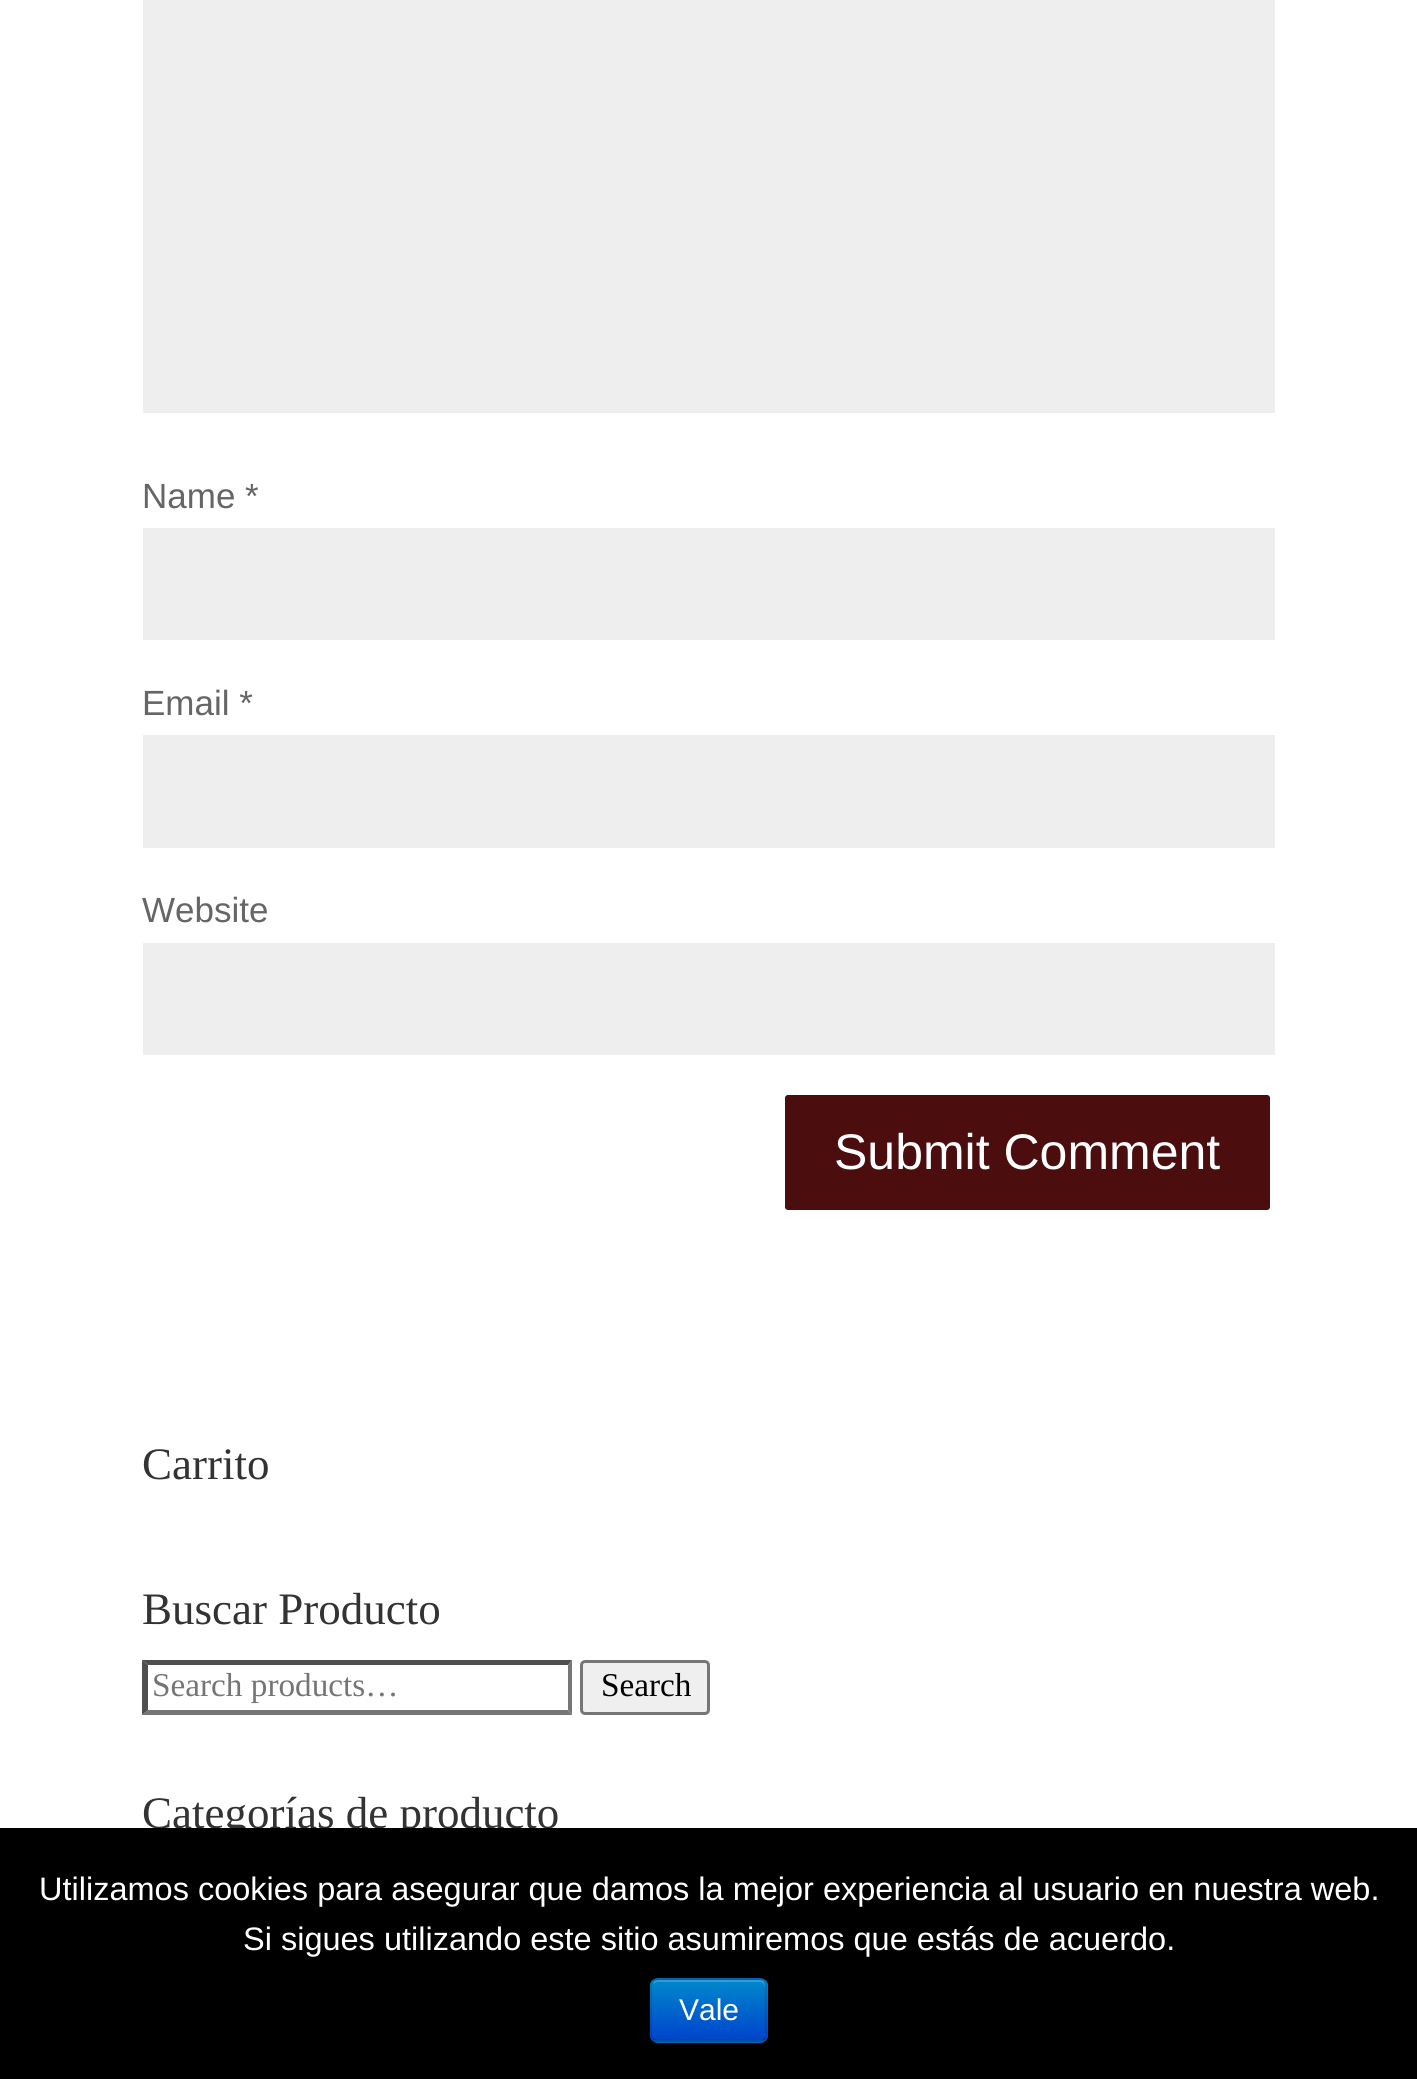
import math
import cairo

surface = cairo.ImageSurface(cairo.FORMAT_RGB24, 1417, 2079)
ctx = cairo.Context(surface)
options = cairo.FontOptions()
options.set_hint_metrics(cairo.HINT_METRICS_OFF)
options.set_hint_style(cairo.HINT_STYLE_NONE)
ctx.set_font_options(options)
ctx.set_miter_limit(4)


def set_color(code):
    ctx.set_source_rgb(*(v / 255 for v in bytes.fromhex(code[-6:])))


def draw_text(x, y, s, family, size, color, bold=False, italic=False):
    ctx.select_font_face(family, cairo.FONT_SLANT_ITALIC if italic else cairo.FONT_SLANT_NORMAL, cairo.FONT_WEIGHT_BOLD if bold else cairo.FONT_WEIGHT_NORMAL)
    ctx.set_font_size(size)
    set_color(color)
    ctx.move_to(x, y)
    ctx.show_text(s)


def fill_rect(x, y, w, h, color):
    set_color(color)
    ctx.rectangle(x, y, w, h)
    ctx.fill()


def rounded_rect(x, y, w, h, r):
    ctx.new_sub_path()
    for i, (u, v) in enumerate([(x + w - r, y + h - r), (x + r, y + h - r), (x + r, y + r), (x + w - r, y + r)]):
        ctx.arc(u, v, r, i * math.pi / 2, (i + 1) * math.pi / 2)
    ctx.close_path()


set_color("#ffffff")
ctx.paint()
fill_rect(143, 0, 1132, 413, "#eeeeee")
draw_text(142, 508, "Name *", "Liberation Sans", 35, "#666666")
fill_rect(143, 528, 1132, 112, "#eeeeee")
draw_text(142, 715, "Email *", "Liberation Sans", 35, "#666666")
fill_rect(143, 735, 1132, 113, "#eeeeee")
draw_text(142, 922, "Website", "Liberation Sans", 35, "#666666")
fill_rect(143, 943, 1132, 112, "#eeeeee")
set_color("#4c0d0e")
rounded_rect(782.5, 1092.5, 490, 120, 5.5)
ctx.fill_preserve()
set_color("#ffffff")
ctx.set_line_width(5)
ctx.stroke()
draw_text(834, 1169, "Submit Comment", "Liberation Sans", 50, "#ffffff")
draw_text(142, 1479, "Carrito", "Liberation Serif", 45, "#333333")
draw_text(142, 1624, "Buscar Producto", "Liberation Serif", 45, "#333333")
set_color("#4f4f4f")
ctx.new_path()
ctx.move_to(142, 1660)
ctx.line_to(572, 1660)
ctx.line_to(568, 1665)
ctx.line_to(148, 1665)
ctx.close_path()
ctx.fill()
set_color("#767676")
ctx.new_path()
ctx.move_to(572, 1660)
ctx.line_to(572, 1715)
ctx.line_to(568, 1710)
ctx.line_to(568, 1665)
ctx.close_path()
ctx.fill()
ctx.new_path()
ctx.move_to(572, 1715)
ctx.line_to(142, 1715)
ctx.line_to(148, 1710)
ctx.line_to(568, 1710)
ctx.close_path()
ctx.fill()
set_color("#4f4f4f")
ctx.new_path()
ctx.move_to(142, 1715)
ctx.line_to(142, 1660)
ctx.line_to(148, 1665)
ctx.line_to(148, 1710)
ctx.close_path()
ctx.fill()
draw_text(152, 1696, "Search products…", "Liberation Serif", 33.25, "#757575")
set_color("#efefef")
rounded_rect(581.5, 1661.5, 127, 52, 3.5)
ctx.fill_preserve()
set_color("#767676")
ctx.set_line_width(3)
ctx.stroke()
draw_text(601, 1696, "Search", "Liberation Serif", 33.25, "#000000")
draw_text(142, 1828, "Categorías de producto", "Liberation Serif", 45, "#333333")
fill_rect(0, 1828, 1417, 251, "#000000")
draw_text(39, 1900, "Utilizamos cookies para asegurar que damos la mejor experiencia al usuario en nuestra web.", "Liberation Sans", 32.5, "#ffffff")
draw_text(243, 1950, "Si sigues utilizando este sitio asumiremos que estás de acuerdo.", "Liberation Sans", 32.5, "#ffffff")
set_color("#006dcc")
rounded_rect(650, 1978, 118, 65, 8)
ctx.fill()
ctx.save()
rounded_rect(650, 1978, 118, 65, 8)
ctx.clip()
gradient = cairo.LinearGradient(709, 1980, 709, 2040)
gradient.add_color_stop_rgba(0, 0, 0.533, 0.8, 1)
gradient.add_color_stop_rgba(1, 0, 0.267, 0.8, 1)
ctx.set_source(gradient)
ctx.rectangle(650, 1980, 118, 60)
ctx.fill()
ctx.restore()
ctx.set_source_rgba(1, 1, 1, 0.2)
ctx.new_path()
ctx.move_to(658, 1982)
ctx.line_to(760, 1982)
ctx.curve_to(763, 1982, 765, 1985, 765, 1988)
ctx.line_to(765, 1985)
ctx.curve_to(765, 1982, 763, 1980, 760, 1980)
ctx.line_to(658, 1980)
ctx.curve_to(655, 1980, 653, 1982, 653, 1985)
ctx.curve_to(654, 1983, 656, 1982, 658, 1982)
ctx.close_path()
ctx.fill()
ctx.new_path()
ctx.move_to(764.5, 2039.5)
ctx.curve_to(763, 2040.5, 761.5, 2041, 760, 2041)
ctx.line_to(657.5, 2041)
ctx.curve_to(656, 2041, 654.5, 2040.5, 653, 2039.5)
ctx.set_source_rgba(0, 0, 0, 0.25)
ctx.set_line_width(2.5)
ctx.stroke()
ctx.new_path()
ctx.move_to(653, 2039.5)
ctx.curve_to(652, 2038, 651, 2036.5, 651, 2035)
ctx.line_to(651, 1985)
ctx.curve_to(651, 1983.5, 652, 1982, 653, 1980.5)
ctx.curve_to(654.5, 1979.5, 656, 1979, 657.5, 1979)
ctx.line_to(760, 1979)
ctx.curve_to(761.5, 1979, 763, 1979.5, 764.5, 1980.5)
ctx.curve_to(765.5, 1982, 766, 1983.5, 766, 1985)
ctx.line_to(766, 2035)
ctx.curve_to(766, 2036.5, 765.5, 2038, 764.5, 2039.5)
ctx.set_source_rgba(0, 0, 0, 0.1)
ctx.stroke()
draw_text(679, 2020, "Vale", "Liberation Sans", 30, "#ffffff")
surface.write_to_png("output.png")
